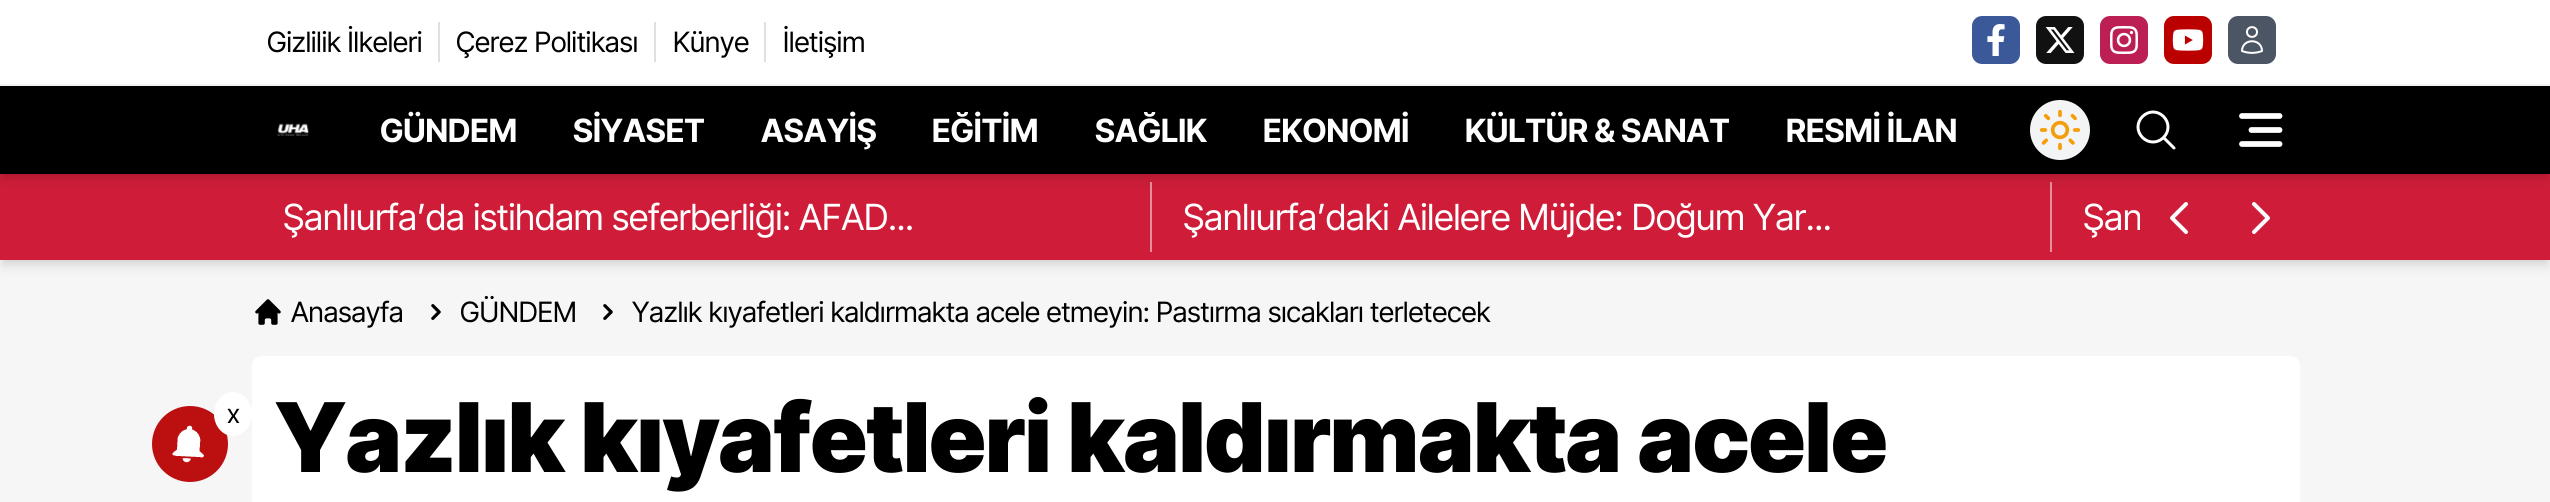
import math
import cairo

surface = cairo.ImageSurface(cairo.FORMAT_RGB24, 2550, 502)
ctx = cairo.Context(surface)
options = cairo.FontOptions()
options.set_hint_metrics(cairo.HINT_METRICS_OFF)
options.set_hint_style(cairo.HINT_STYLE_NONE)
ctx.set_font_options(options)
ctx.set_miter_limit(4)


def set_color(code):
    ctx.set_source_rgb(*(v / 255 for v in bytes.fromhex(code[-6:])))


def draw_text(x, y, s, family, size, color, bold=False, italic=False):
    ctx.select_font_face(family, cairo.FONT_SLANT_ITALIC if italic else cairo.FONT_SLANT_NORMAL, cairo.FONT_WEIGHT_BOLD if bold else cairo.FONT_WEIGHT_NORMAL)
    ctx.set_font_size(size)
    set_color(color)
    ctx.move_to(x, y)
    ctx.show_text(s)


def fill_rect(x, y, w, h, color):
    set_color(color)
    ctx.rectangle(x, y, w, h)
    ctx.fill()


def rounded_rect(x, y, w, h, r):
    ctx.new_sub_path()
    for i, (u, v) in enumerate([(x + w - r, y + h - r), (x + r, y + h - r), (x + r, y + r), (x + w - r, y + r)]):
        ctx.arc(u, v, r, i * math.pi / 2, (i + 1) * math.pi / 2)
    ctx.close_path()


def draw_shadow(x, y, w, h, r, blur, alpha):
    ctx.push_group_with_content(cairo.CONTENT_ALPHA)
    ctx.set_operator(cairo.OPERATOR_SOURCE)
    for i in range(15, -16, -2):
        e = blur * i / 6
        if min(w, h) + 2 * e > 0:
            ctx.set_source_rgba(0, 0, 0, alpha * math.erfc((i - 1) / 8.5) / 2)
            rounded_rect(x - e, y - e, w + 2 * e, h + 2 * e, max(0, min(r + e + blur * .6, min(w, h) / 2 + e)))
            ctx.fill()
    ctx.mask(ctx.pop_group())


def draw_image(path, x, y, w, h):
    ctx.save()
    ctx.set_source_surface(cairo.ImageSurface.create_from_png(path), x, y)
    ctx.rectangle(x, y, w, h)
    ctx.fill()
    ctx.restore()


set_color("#f6f6f6")
ctx.paint()
fill_rect(0, 0, 2550, 84, "#ffffff")
fill_rect(0, 84, 2550, 2, "#f3f4f6")
draw_text(267, 52, "Gizlilik İlkeleri", "Inter Tight", 28, "#000000")
fill_rect(438, 22, 2, 40, "#e0e0e0")
draw_text(456, 52, "Çerez Politikası", "Inter Tight", 28, "#000000")
fill_rect(654, 22, 2, 40, "#e0e0e0")
draw_text(673, 52, "Künye", "Inter Tight", 28, "#000000")
fill_rect(764, 22, 2, 40, "#e0e0e0")
draw_text(783, 52, "İletişim", "Inter Tight", 28, "#000000")
set_color("#3b5998")
rounded_rect(1972, 16, 48, 48, 10)
ctx.fill()
draw_image("assets/img1.png", 1987, 24, 18, 32)
set_color("#111111")
rounded_rect(2036, 16, 48, 48, 10)
ctx.fill()
draw_image("assets/img2.png", 2045, 27, 30, 26)
set_color("#bb1f54")
rounded_rect(2100, 16, 48, 48, 10)
ctx.fill()
draw_image("assets/img3.png", 2110, 26, 28, 28)
set_color("#bb0000")
rounded_rect(2164, 16, 48, 48, 10)
ctx.fill()
draw_image("assets/img4.png", 2172, 29, 32, 22)
set_color("#4b5563")
rounded_rect(2228, 16, 48, 48, 10)
ctx.fill()
ctx.new_path()
ctx.move_to(2257, 32)
ctx.curve_to(2257, 38.5, 2247, 38.5, 2247, 32)
ctx.curve_to(2247, 25.5, 2257, 25.5, 2257, 32)
ctx.close_path()
ctx.move_to(2242, 51)
ctx.curve_to(2242, 38, 2262, 38, 2262, 51)
ctx.curve_to(2255.5, 53.5, 2248.5, 53.5, 2242, 51)
ctx.close_path()
set_color("#ffffff")
ctx.set_line_cap(cairo.LINE_CAP_ROUND)
ctx.set_line_join(cairo.LINE_JOIN_ROUND)
ctx.stroke()
set_color("#000000")
draw_shadow(4, 182, 2542, 78, 0, 4, 0.1)
draw_shadow(2, 184, 2546, 82, 0, 6, 0.1)
fill_rect(0, 174, 2550, 86, "#cf1d39")
fill_rect(1150, 182, 2, 70, "#e78e9c")
fill_rect(2050, 182, 2, 70, "#e78e9c")
set_color("#000000")
draw_shadow(4, 94, 2542, 80, 0, 4, 0.1)
draw_shadow(2, 96, 2546, 84, 0, 6, 0.1)
fill_rect(0, 86, 2550, 88, "#000000")
draw_image("assets/img5.png", 277, 123, 32, 13)
draw_text(380, 142, "GÜNDEM", "Inter Tight", 32, "#ffffff", bold=True)
draw_text(573, 142, "SİYASET", "Inter Tight", 32, "#ffffff", bold=True)
draw_text(761, 142, "ASAYİŞ", "Inter Tight", 32, "#ffffff", bold=True)
draw_text(932, 142, "EĞİTİM", "Inter Tight", 32, "#ffffff", bold=True)
draw_text(1095, 142, "SAĞLIK", "Inter Tight", 32, "#ffffff", bold=True)
draw_text(1263, 142, "EKONOMİ", "Inter Tight", 32, "#ffffff", bold=True)
draw_text(1465, 142, "KÜLTÜR & SANAT", "Inter Tight", 32, "#ffffff", bold=True)
draw_text(1786, 142, "RESMİ İLAN", "Inter Tight", 32, "#ffffff", bold=True)
set_color("#f3f4f6")
ctx.new_path()
ctx.arc(2060, 130, 30, 0, 2 * math.pi)
ctx.fill()
draw_image("assets/img6.png", 2039, 109, 42, 42)
ctx.new_path()
ctx.move_to(2174, 148)
ctx.line_to(2163.5, 137.5)
ctx.move_to(2163.5, 137.5)
ctx.curve_to(2169.5, 131.5, 2169.5, 122.5, 2163.5, 116.5)
ctx.curve_to(2157.5, 110.5, 2148.5, 110.5, 2142.5, 116.5)
ctx.curve_to(2136.5, 122.5, 2136.5, 131.5, 2142.5, 137.5)
ctx.curve_to(2148.5, 143.5, 2157.5, 143.5, 2163.5, 137.5)
ctx.close_path()
set_color("#ffffff")
ctx.set_line_width(3)
ctx.stroke()
ctx.new_path()
ctx.move_to(2279.5, 116)
ctx.line_to(2242, 116)
ctx.move_to(2279.5, 130)
ctx.line_to(2251.5, 130)
ctx.move_to(2279.5, 144)
ctx.line_to(2242, 144)
ctx.set_line_width(5.8)
ctx.stroke()
draw_text(283, 230, "Şanlıurfa’da istihdam seferberliği: AFAD...", "Inter Tight", 36, "#ffffff")
draw_text(1183, 230, "Şanlıurfa’daki Ailelere Müjde: Doğum Yar...", "Inter Tight", 36, "#ffffff")
ctx.save()
ctx.rectangle(2052, 182, 88, 70)
ctx.clip()
draw_text(2083, 230, "Şan", "Inter Tight", 36, "#ffffff")
ctx.restore()
ctx.new_path()
ctx.move_to(2186, 232)
ctx.line_to(2172, 218)
ctx.line_to(2186, 204)
ctx.set_line_width(4)
ctx.stroke()
ctx.new_path()
ctx.move_to(2254, 204)
ctx.line_to(2268, 218)
ctx.line_to(2254, 232)
ctx.stroke()
set_color("#bc0f0f")
ctx.arc(190, 444, 38, 0, 2 * math.pi)
ctx.fill()
set_color("#ffffff")
ctx.new_path()
ctx.move_to(233, 392)
ctx.curve_to(243.5, 392, 252, 402, 252, 414)
ctx.curve_to(252, 426, 243.5, 436, 233, 436)
ctx.curve_to(222.5, 436, 214, 426, 214, 414)
ctx.curve_to(214, 402, 222.5, 392, 233, 392)
ctx.close_path()
ctx.fill()
draw_text(227, 423, "x", "Inter Tight", 26, "#000000")
draw_image("assets/img7.png", 172, 425, 32, 38)
draw_image("assets/img8.png", 255, 299, 26, 26)
draw_text(291, 322, "Anasayfa", "Inter Tight", 28, "#000000")
draw_image("assets/img9.png", 431, 304, 10, 16)
draw_text(460, 322, "GÜNDEM", "Inter Tight", 28, "#000000")
draw_image("assets/img9.png", 603, 304, 10, 16)
draw_text(632, 322, "Yazlık kıyafetleri kaldırmakta acele etmeyin: Pastırma sıcakları terletecek", "Inter Tight", 28, "#000000")
set_color("#ffffff")
rounded_rect(252, 356, 2048, 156, 10)
ctx.fill()
draw_text(275, 472, "Yazlık kıyafetleri kaldırmakta acele", "Inter Tight Black", 96, "#000000")
surface.write_to_png("output.png")
